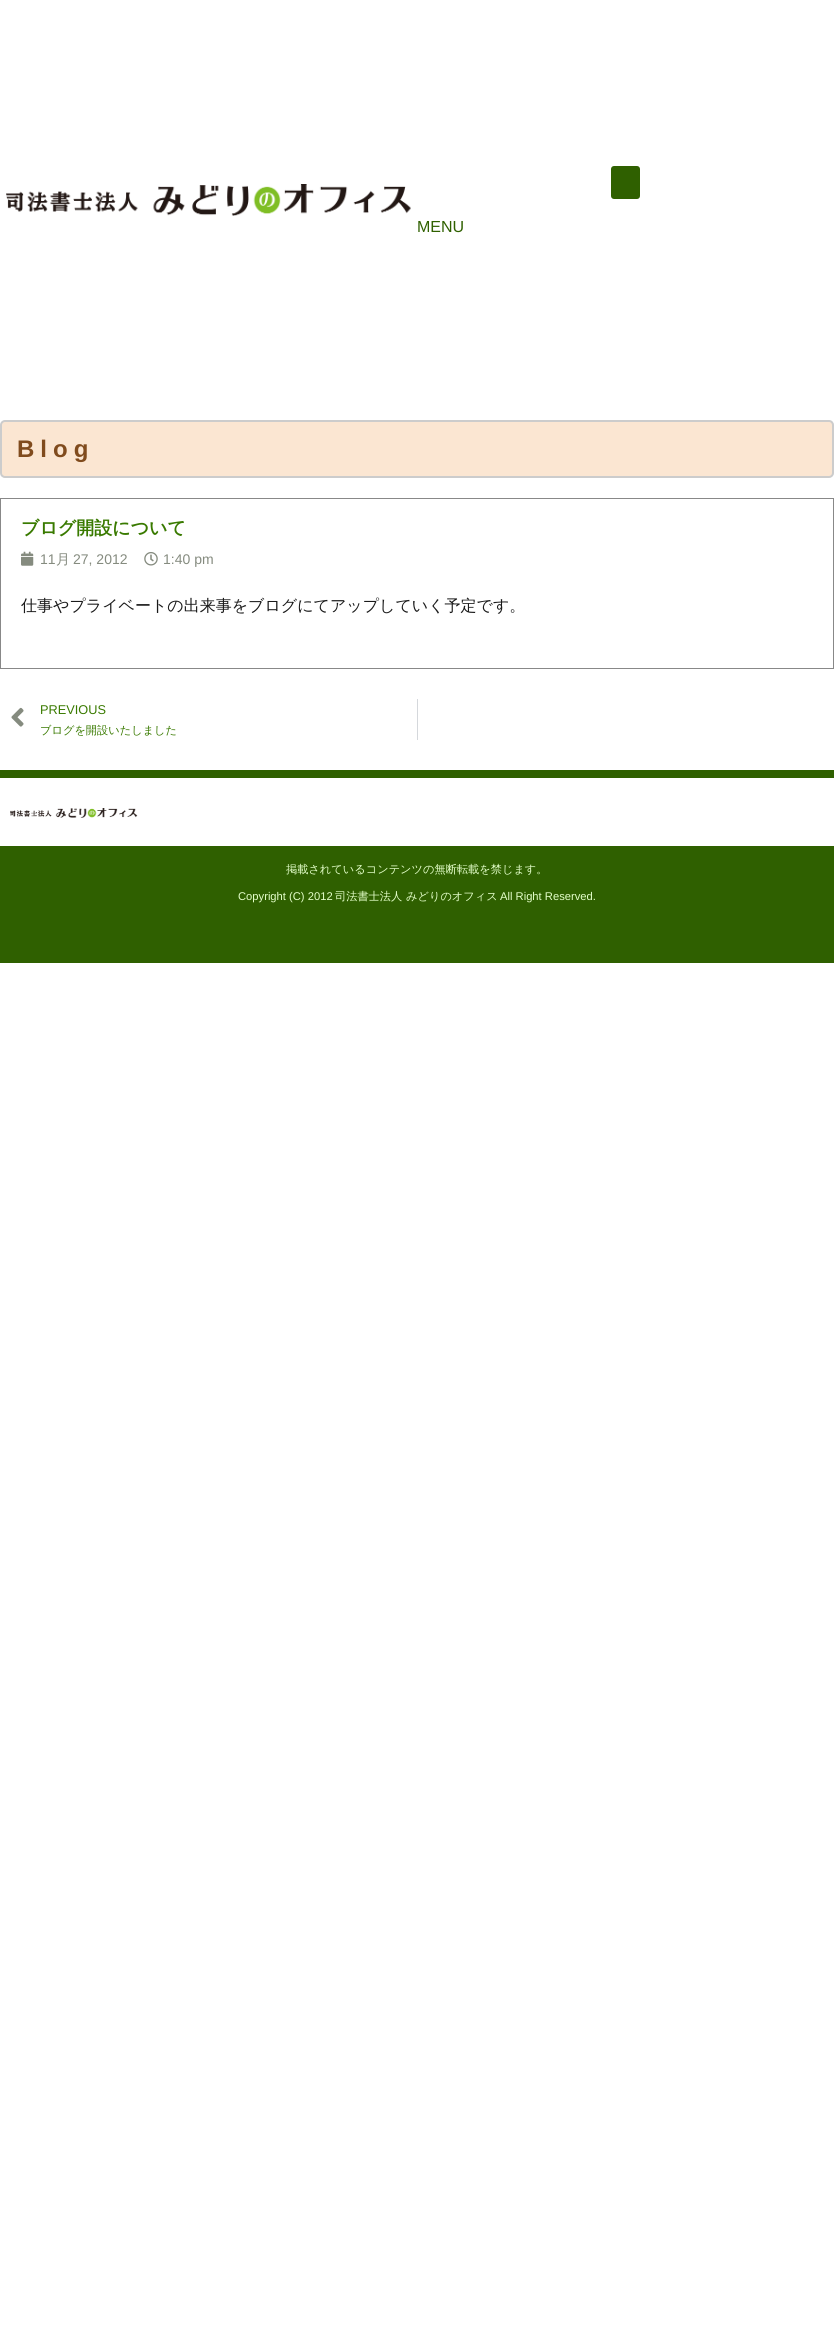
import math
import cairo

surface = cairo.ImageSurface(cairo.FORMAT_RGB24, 834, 2325)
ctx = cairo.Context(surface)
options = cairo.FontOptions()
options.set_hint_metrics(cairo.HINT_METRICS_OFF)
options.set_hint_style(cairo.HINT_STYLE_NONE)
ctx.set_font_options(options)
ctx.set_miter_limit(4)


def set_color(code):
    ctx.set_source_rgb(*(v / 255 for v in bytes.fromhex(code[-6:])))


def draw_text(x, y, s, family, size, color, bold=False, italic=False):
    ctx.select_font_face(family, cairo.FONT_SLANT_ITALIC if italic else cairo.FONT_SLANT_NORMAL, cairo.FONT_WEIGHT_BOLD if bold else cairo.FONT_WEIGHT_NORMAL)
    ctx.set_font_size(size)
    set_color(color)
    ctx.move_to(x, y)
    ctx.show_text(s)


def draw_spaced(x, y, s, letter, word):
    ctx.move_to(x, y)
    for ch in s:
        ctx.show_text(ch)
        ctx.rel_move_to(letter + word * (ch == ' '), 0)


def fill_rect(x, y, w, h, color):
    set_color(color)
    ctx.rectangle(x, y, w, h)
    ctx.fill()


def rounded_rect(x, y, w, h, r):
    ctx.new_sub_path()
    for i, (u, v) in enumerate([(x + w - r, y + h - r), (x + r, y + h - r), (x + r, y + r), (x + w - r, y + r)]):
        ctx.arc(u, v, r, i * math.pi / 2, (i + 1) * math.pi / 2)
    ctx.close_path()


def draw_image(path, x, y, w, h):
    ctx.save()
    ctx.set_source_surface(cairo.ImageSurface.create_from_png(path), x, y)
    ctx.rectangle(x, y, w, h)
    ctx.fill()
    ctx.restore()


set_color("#ffffff")
ctx.paint()
draw_image("assets/img1.png", 6, 184, 405, 32)
set_color("#2f6000")
rounded_rect(611, 166, 29, 33, 3)
ctx.fill()
draw_text(417, 232, "MENU", "Liberation Sans", 16, "#2f6000")
set_color("#fbe6d2")
rounded_rect(1, 421, 832, 56, 4)
ctx.fill_preserve()
set_color("#cccccc")
ctx.stroke()
ctx.select_font_face("Liberation Sans", cairo.FONT_SLANT_NORMAL, cairo.FONT_WEIGHT_BOLD)
ctx.set_font_size(24)
set_color("#804b1d")
draw_spaced(17, 457, "Blog", 6, 0)
ctx.rectangle(0.5, 498.5, 833, 170)
set_color("#888888")
ctx.set_line_width(1)
ctx.stroke()
draw_text(21, 534, "ブログ開設について", "WenQuanYi Zen Hei", 18, "#397a00", bold=True)
draw_image("assets/img2.png", 21, 551, 13, 15)
draw_text(40, 564, "11", "Liberation Sans", 14, "#858b7f")
draw_text(56, 564, "月", "WenQuanYi Zen Hei Medium", 14, "#858b7f")
draw_text(73, 564, "27, 2012", "Liberation Sans", 14, "#858b7f")
draw_image("assets/img3.png", 144, 552, 14, 14)
draw_text(163, 564, "1:40 pm", "Liberation Sans", 14, "#858b7f")
draw_text(21, 611, "仕事やプライベートの出来事をブログにてアップしていく予定です。", "WenQuanYi Zen Hei Medium", 16, "#1a1a1a")
draw_image("assets/img4.png", 11, 707, 13, 20)
draw_text(40, 714, "PREVIOUS", "Liberation Sans", 12.75, "#397a00")
draw_text(40, 734, "ブログを開設いたしました", "WenQuanYi Zen Hei Medium", 11.2, "#397a00")
fill_rect(417, 699, 1, 41, "#d5d8dc")
fill_rect(0, 770, 834, 8, "#2f6000")
draw_image("assets/img5.png", 10, 808, 128, 10)
fill_rect(0, 846, 834, 117, "#2f6000")
draw_text(286, 873, "掲載されているコンテンツの無断転載を禁じます。", "WenQuanYi Zen Hei Medium", 11.2, "#e4ffca")
draw_text(238, 900, "Copyright (C) 2012", "Liberation Sans", 11.2, "#e4ffca")
draw_text(335, 900, "司法書士法人", "WenQuanYi Zen Hei Medium", 11.2, "#e4ffca")
draw_text(406, 900, "みどりのオフィス", "WenQuanYi Zen Hei Medium", 11.2, "#e4ffca")
draw_text(500, 900, "All Right Reserved.", "Liberation Sans", 11.2, "#e4ffca")
surface.write_to_png("output.png")
